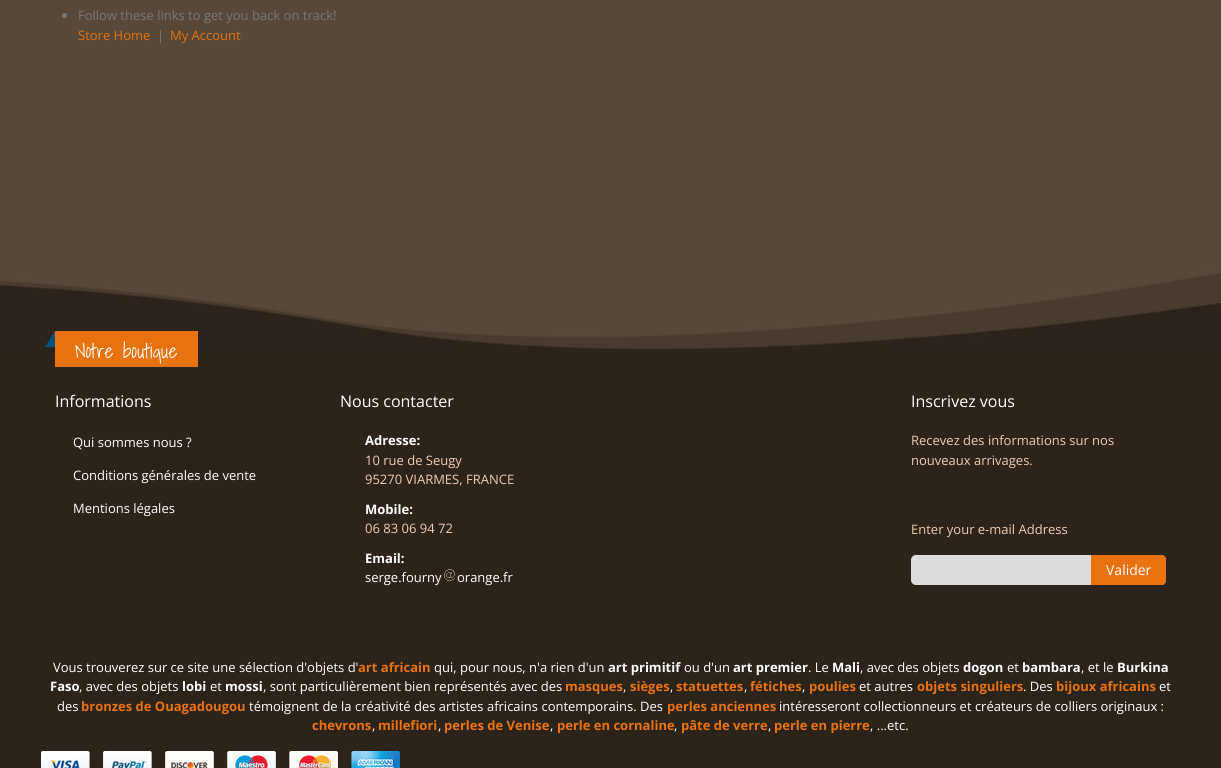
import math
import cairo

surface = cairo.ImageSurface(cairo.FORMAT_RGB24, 1221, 768)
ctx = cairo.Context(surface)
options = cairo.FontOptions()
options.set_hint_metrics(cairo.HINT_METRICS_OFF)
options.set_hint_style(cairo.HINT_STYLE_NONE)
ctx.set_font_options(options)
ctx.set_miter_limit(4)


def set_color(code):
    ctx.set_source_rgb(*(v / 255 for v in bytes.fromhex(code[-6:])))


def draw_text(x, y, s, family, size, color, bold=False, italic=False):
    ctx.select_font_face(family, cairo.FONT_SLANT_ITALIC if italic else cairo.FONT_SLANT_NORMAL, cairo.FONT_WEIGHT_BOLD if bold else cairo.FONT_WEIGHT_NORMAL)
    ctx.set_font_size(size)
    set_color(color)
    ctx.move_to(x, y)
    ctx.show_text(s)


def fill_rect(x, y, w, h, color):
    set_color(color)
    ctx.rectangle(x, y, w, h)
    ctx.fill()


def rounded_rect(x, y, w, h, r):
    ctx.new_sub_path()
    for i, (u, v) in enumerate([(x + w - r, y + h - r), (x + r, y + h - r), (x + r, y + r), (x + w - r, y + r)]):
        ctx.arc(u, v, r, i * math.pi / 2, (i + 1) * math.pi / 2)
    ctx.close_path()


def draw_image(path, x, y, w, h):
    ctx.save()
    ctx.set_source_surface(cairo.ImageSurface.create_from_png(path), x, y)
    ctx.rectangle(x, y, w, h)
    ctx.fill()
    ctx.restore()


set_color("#584839")
ctx.paint()
set_color("#777777")
ctx.arc(64.5, 15.5, 2.5, 0, 2 * math.pi)
ctx.fill()
draw_text(78, 20, "Follow these links to get you back on track!", "Open Sans", 13, "#777777")
draw_text(78, 40, "Store Home", "Open Sans", 13, "#e8720d")
draw_text(157, 40, "|", "Open Sans", 13, "#777777")
draw_text(170, 40, "My Account", "Open Sans", 13, "#e8720d")
fill_rect(0, 350, 1221, 418, "#2c231b")
draw_image("assets/img1.png", 0, 187, 1221, 163)
fill_rect(55, 331, 143, 36, "#e8720d")
set_color("#005580")
ctx.new_path()
ctx.move_to(55, 331)
ctx.line_to(55, 347)
ctx.line_to(45, 347)
ctx.close_path()
ctx.fill()
draw_text(75, 358, "Notre boutique", "Shadows Into Light Light", 20, "#ffffff")
draw_text(55, 407, "Informations", "Open Sans", 16, "#ffffff")
draw_text(73, 447, "Qui sommes nous ?", "Open Sans", 13, "#ffffff")
draw_text(73, 480, "Conditions générales de vente", "Open Sans", 13, "#ffffff")
draw_text(73, 513, "Mentions légales", "Open Sans", 13, "#ffffff")
draw_text(340, 407, "Nous contacter", "Open Sans", 16, "#ffffff")
draw_text(365, 445, "Adresse:", "Open Sans", 13, "#ffffff", bold=True)
draw_text(365, 465, "10 rue de Seugy", "Open Sans", 13, "#edcdb2")
draw_text(365, 484, "95270 VIARMES, FRANCE", "Open Sans", 13, "#edcdb2")
draw_text(365, 514, "Mobile:", "Open Sans", 13, "#ffffff", bold=True)
draw_text(365, 533, "06 83 06 94 72", "Open Sans", 13, "#edcdb2")
draw_text(365, 563, "Email:", "Open Sans", 13, "#ffffff", bold=True)
draw_text(365, 582, "serge.fourny", "Open Sans", 13, "#ffffff")
draw_image("assets/img2.png", 442, 568, 15, 14)
draw_text(457, 582, "orange.fr", "Open Sans", 13, "#ffffff")
draw_text(911, 407, "Inscrivez vous", "Open Sans", 16, "#ffffff")
draw_text(911, 445, "Recevez des informations sur nos", "Open Sans", 13, "#edcdb2")
draw_text(911, 465, "nouveaux arrivages.", "Open Sans", 13, "#edcdb2")
draw_text(911, 534, "Enter your e-mail Address", "Open Sans", 13, "#edcdb2")
set_color("#dcdcdc")
rounded_rect(911, 555, 255, 30, 5)
ctx.fill()
set_color("#e8720d")
ctx.new_path()
ctx.move_to(1091, 555)
ctx.line_to(1161, 555)
ctx.curve_to(1164, 555, 1166, 557, 1166, 560)
ctx.line_to(1166, 580)
ctx.curve_to(1166, 583, 1164, 585, 1161, 585)
ctx.line_to(1091, 585)
ctx.close_path()
ctx.fill()
draw_text(1106, 575, "Valider", "Open Sans", 14, "#ffffff")
draw_text(53, 672, "Vous trouverez sur ce site une sélection d'objets d'", "Open Sans", 13, "#ffffff")
draw_text(358, 672, "art africain", "Open Sans", 13, "#e8720d", bold=True)
draw_text(434, 672, "qui, pour nous, n'a rien d'un", "Open Sans", 13, "#ffffff")
draw_text(608, 672, "art primitif", "Open Sans", 13, "#ffffff", bold=True)
draw_text(684, 672, "ou d'un", "Open Sans", 13, "#ffffff")
draw_text(733, 672, "art premier", "Open Sans", 13, "#ffffff", bold=True)
draw_text(808, 672, ". Le", "Open Sans", 13, "#ffffff")
draw_text(832, 672, "Mali", "Open Sans", 13, "#ffffff", bold=True)
draw_text(860, 672, ", avec des objets", "Open Sans", 13, "#ffffff")
draw_text(963, 672, "dogon", "Open Sans", 13, "#ffffff", bold=True)
draw_text(1007, 672, "et", "Open Sans", 13, "#ffffff")
draw_text(1022, 672, "bambara", "Open Sans", 13, "#ffffff", bold=True)
draw_text(1081, 672, ", et le", "Open Sans", 13, "#ffffff")
draw_text(1117, 672, "Burkina", "Open Sans", 13, "#ffffff", bold=True)
draw_text(50, 691, "Faso", "Open Sans", 13, "#ffffff", bold=True)
draw_text(79, 691, ", avec des objets", "Open Sans", 13, "#ffffff")
draw_text(182, 691, "lobi", "Open Sans", 13, "#ffffff", bold=True)
draw_text(210, 691, "et", "Open Sans", 13, "#ffffff")
draw_text(225, 691, "mossi", "Open Sans", 13, "#ffffff", bold=True)
draw_text(263, 691, ", sont particulièrement bien représentés avec des", "Open Sans", 13, "#ffffff")
draw_text(565, 691, "masques", "Open Sans", 13, "#e8720d", bold=True)
draw_text(623, 691, ",", "Open Sans", 13, "#ffffff")
draw_text(630, 691, "sièges", "Open Sans", 13, "#e8720d", bold=True)
draw_text(670, 691, ",", "Open Sans", 13, "#ffffff")
draw_text(676, 691, "statuettes", "Open Sans", 13, "#e8720d", bold=True)
draw_text(744, 691, ",", "Open Sans", 13, "#ffffff")
draw_text(750, 691, "fétiches", "Open Sans", 13, "#e8720d", bold=True)
draw_text(802, 691, ",", "Open Sans", 13, "#ffffff")
draw_text(809, 691, "poulies", "Open Sans", 13, "#e8720d", bold=True)
draw_text(859, 691, "et autres", "Open Sans", 13, "#ffffff")
draw_text(917, 691, "objets singuliers", "Open Sans", 13, "#e8720d", bold=True)
draw_text(1023, 691, ". Des", "Open Sans", 13, "#ffffff")
draw_text(1056, 691, "bijoux africains", "Open Sans", 13, "#e8720d", bold=True)
draw_text(1159, 691, "et", "Open Sans", 13, "#ffffff")
draw_text(57, 711, "des", "Open Sans", 13, "#ffffff")
draw_text(81, 711, "bronzes de Ouagadougou", "Open Sans", 13, "#e8720d", bold=True)
draw_text(249, 711, "témoignent de la créativité des artistes africains contemporains. Des", "Open Sans", 13, "#ffffff")
draw_text(667, 711, "perles anciennes", "Open Sans", 13, "#e8720d", bold=True)
draw_text(779, 711, "intéresseront collectionneurs et créateurs de colliers originaux :", "Open Sans", 13, "#ffffff")
draw_text(312, 730, "chevrons", "Open Sans", 13, "#e8720d", bold=True)
draw_text(372, 730, ",", "Open Sans", 13, "#ffffff")
draw_text(378, 730, "millefiori", "Open Sans", 13, "#e8720d", bold=True)
draw_text(438, 730, ",", "Open Sans", 13, "#ffffff")
draw_text(444, 730, "perles de Venise", "Open Sans", 13, "#e8720d", bold=True)
draw_text(550, 730, ",", "Open Sans", 13, "#ffffff")
draw_text(557, 730, "perle en cornaline", "Open Sans", 13, "#e8720d", bold=True)
draw_text(674, 730, ",", "Open Sans", 13, "#ffffff")
draw_text(681, 730, "pâte de verre", "Open Sans", 13, "#e8720d", bold=True)
draw_text(768, 730, ",", "Open Sans", 13, "#ffffff")
draw_text(774, 730, "perle en pierre", "Open Sans", 13, "#e8720d", bold=True)
draw_text(870, 730, ", ...etc.", "Open Sans", 13, "#ffffff")
draw_image("assets/img3.png", 41, 751, 359, 17)
surface.write_to_png("output.png")
